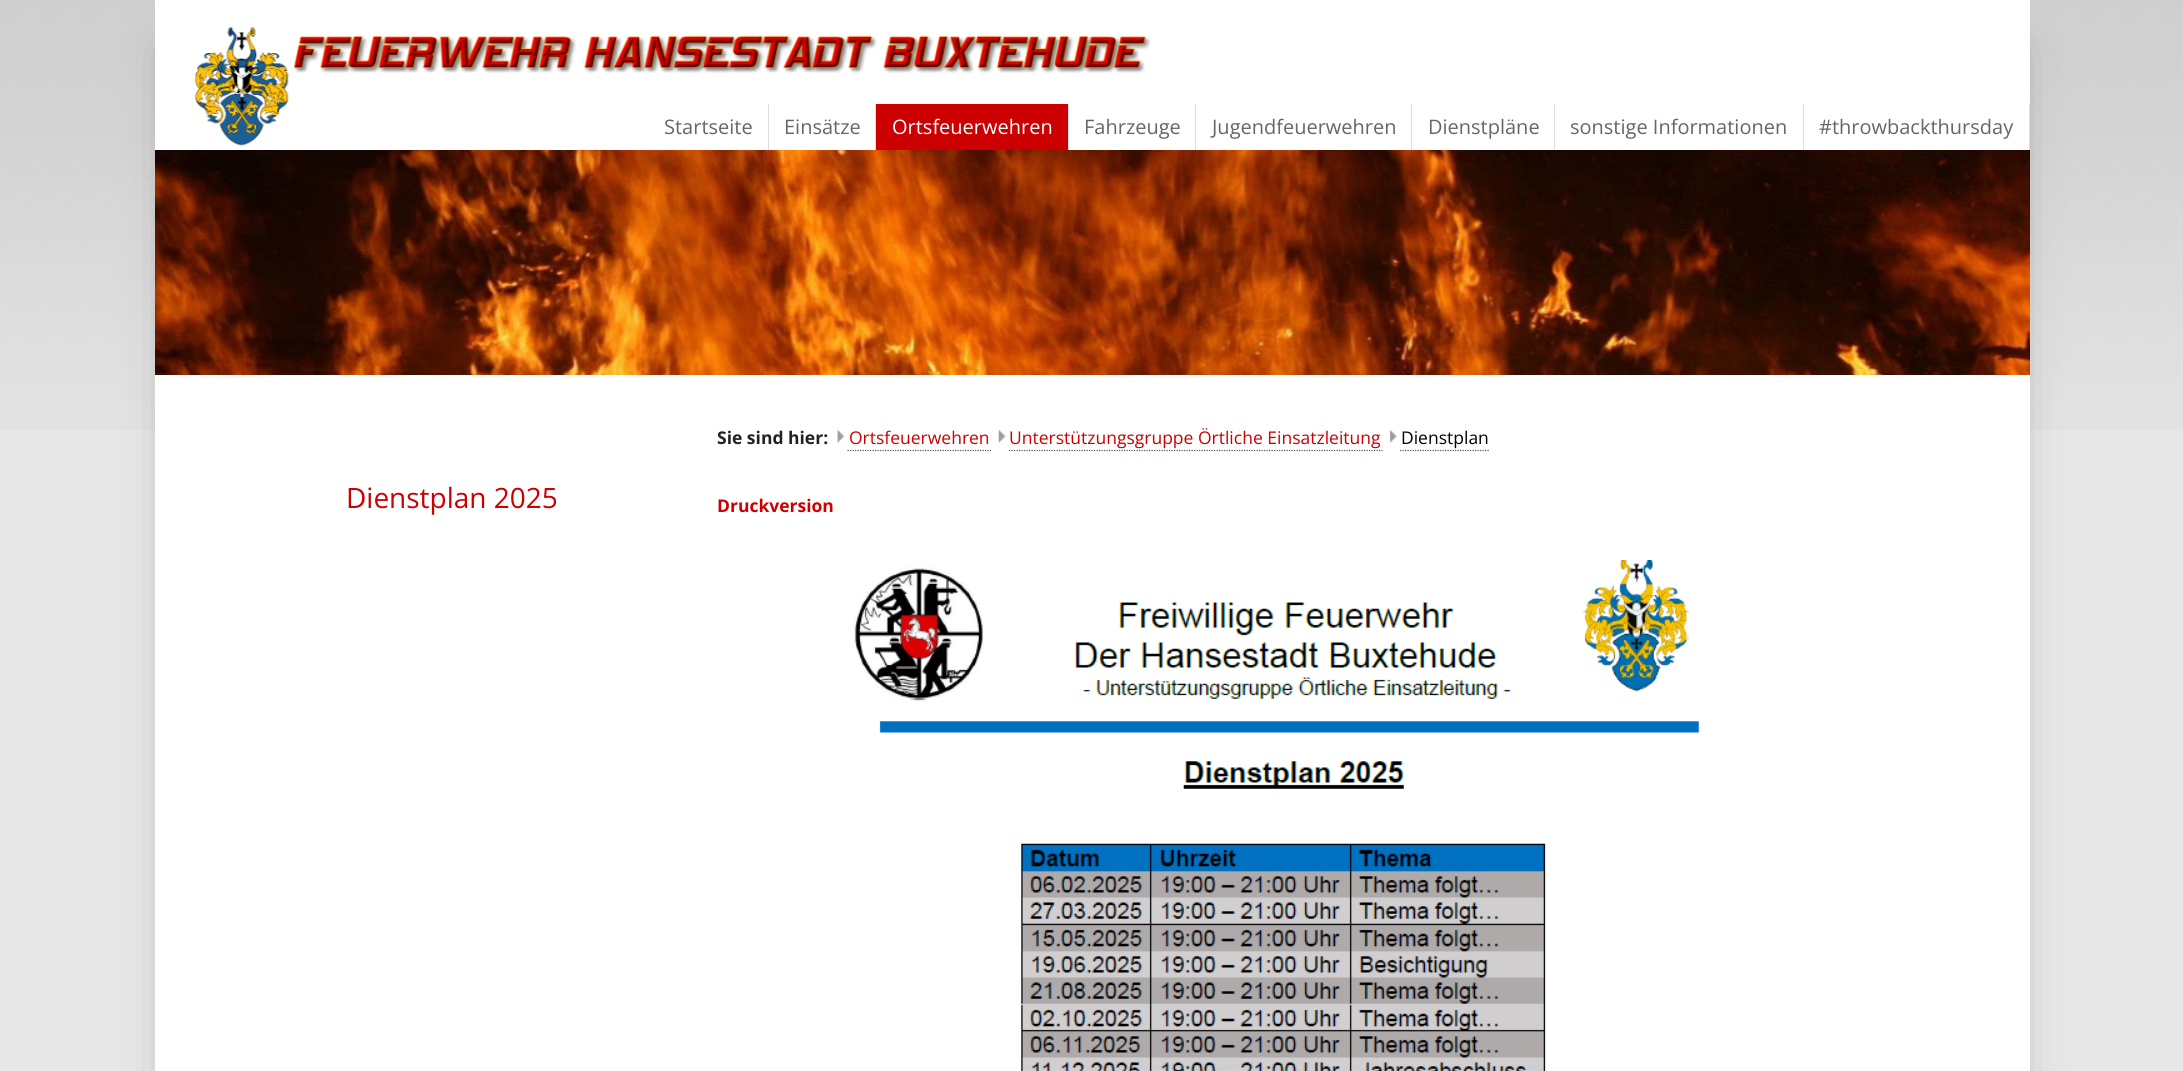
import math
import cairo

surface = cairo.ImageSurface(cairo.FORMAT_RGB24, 2183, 1071)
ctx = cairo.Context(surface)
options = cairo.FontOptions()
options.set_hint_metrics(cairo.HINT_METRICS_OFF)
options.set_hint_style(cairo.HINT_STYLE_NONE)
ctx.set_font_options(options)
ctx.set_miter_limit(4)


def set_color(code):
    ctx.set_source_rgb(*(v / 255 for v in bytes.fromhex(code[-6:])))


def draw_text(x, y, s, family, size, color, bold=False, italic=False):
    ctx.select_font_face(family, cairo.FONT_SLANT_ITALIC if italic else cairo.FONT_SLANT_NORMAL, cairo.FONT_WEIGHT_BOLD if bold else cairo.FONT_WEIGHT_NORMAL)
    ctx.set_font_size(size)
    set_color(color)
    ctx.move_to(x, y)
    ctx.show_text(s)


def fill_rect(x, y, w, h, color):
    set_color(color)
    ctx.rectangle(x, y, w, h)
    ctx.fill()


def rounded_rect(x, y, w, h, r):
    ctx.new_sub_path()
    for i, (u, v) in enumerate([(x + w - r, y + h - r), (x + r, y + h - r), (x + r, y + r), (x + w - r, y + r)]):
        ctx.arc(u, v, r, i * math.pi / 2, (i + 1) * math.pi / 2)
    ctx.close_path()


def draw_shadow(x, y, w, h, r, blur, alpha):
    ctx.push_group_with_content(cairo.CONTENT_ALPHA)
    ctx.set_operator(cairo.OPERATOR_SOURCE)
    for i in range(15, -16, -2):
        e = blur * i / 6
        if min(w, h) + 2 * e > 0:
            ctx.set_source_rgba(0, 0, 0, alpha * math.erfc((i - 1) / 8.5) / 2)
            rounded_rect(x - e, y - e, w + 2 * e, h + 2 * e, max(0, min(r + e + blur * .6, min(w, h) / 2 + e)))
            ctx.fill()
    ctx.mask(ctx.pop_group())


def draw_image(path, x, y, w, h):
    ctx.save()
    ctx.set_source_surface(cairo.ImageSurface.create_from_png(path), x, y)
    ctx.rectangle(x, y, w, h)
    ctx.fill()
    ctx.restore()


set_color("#e7e7e7")
ctx.paint()
draw_image("assets/img1.png", 0, 0, 2183, 430)
set_color("#000000")
draw_shadow(180, 50, 1825, 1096, 0, 25, 0.4)
fill_rect(155, 0, 1875, 150, "#ffffff")
draw_image("assets/img2.png", 195, 27, 956, 119)
fill_rect(768, 104, 1, 46, "#dddddd")
draw_text(664, 134, "Startseite", "Open Sans", 20, "#666666")
fill_rect(875, 104, 1, 46, "#dddddd")
draw_text(784, 134, "Einsätze", "Open Sans", 20, "#666666")
fill_rect(876, 104, 192, 46, "#cc0000")
fill_rect(1068, 104, 1, 46, "#dddddd")
draw_text(892, 134, "Ortsfeuerwehren", "Open Sans", 20, "#ffffff")
fill_rect(1195, 104, 1, 46, "#dddddd")
draw_text(1084, 134, "Fahrzeuge", "Open Sans", 20, "#666666")
fill_rect(1411, 104, 1, 46, "#dddddd")
draw_text(1212, 134, "Jugendfeuerwehren", "Open Sans", 20, "#666666")
fill_rect(1554, 104, 1, 46, "#dddddd")
draw_text(1428, 134, "Dienstpläne", "Open Sans", 20, "#666666")
fill_rect(1803, 104, 1, 46, "#dddddd")
draw_text(1570, 134, "sonstige Informationen", "Open Sans", 20, "#666666")
fill_rect(2029, 104, 1, 46, "#dddddd")
draw_text(1819, 134, "#throwbackthursday", "Open Sans", 20, "#666666")
draw_image("assets/img3.png", 155, 150, 1875, 225)
fill_rect(155, 375, 1875, 696, "#ffffff")
draw_text(717, 444, "Sie sind hier:", "Open Sans", 17.5, "#222222", bold=True)
draw_image("assets/img4.png", 837, 430, 7, 13)
draw_text(849, 444, "Ortsfeuerwehren", "Open Sans", 17.5, "#cc0000")
ctx.new_path()
ctx.move_to(847.5, 450.5)
ctx.line_to(991, 450.5)
set_color("#505567")
ctx.set_line_width(1.2)
ctx.set_dash([1.25, 1.25])
ctx.stroke()
draw_image("assets/img5.png", 998, 429, 8, 14)
draw_text(1009, 444, "Unterstützungsgruppe Örtliche Einsatzleitung", "Open Sans", 17.5, "#cc0000")
ctx.new_path()
ctx.move_to(1009, 450.5)
ctx.line_to(1382.5, 450.5)
set_color("#505567")
ctx.stroke()
draw_image("assets/img6.png", 1389, 430, 8, 13)
draw_text(1401, 444, "Dienstplan", "Open Sans", 17.5, "#000000")
ctx.new_path()
ctx.move_to(1400, 450.5)
ctx.line_to(1490, 450.5)
set_color("#505567")
ctx.stroke()
draw_text(346, 508, "Dienstplan 2025", "Open Sans", 28, "#cc0000")
draw_text(717, 512, "Druckversion", "Open Sans", 17.5, "#cc0000", bold=True)
draw_image("assets/img7.png", 853, 560, 846, 511)
surface.write_to_png("output.png")
